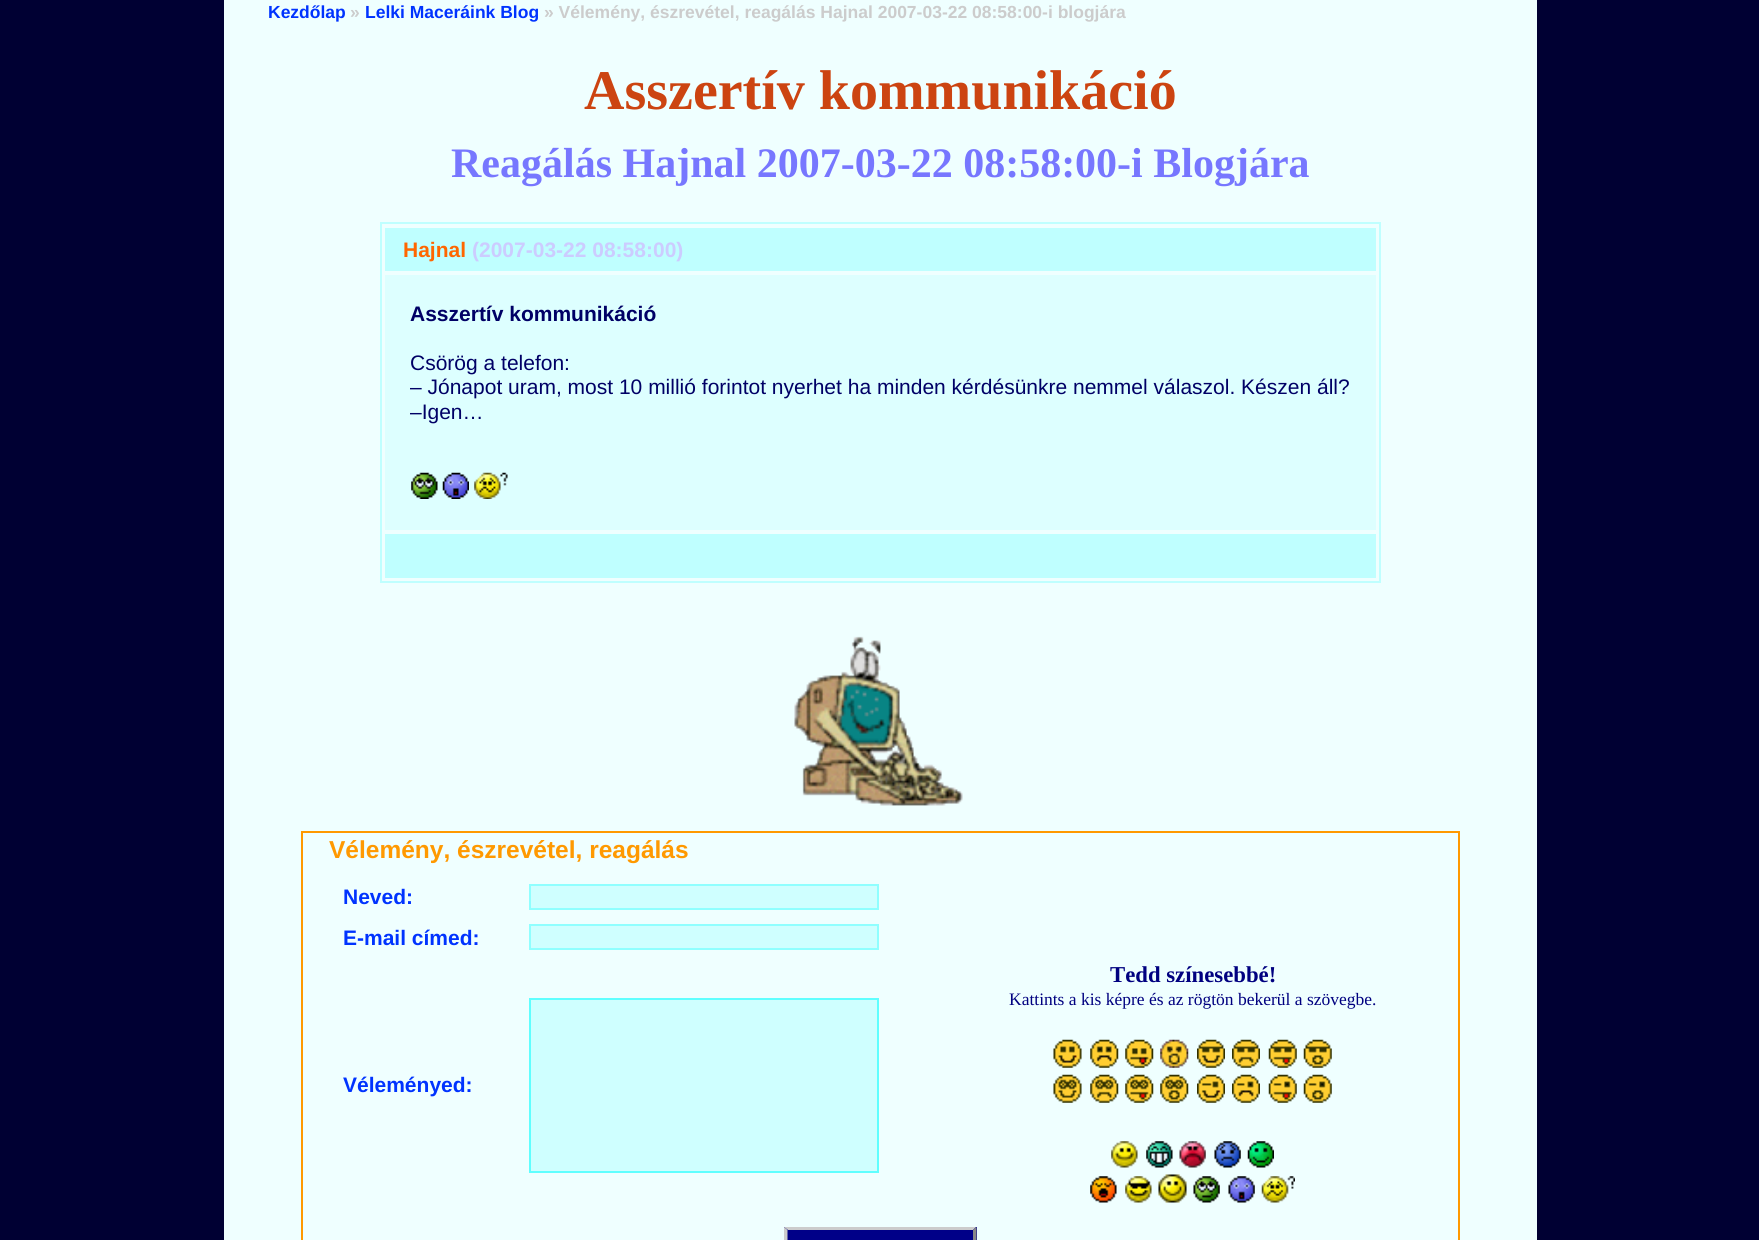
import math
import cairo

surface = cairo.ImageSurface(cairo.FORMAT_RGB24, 1759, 1240)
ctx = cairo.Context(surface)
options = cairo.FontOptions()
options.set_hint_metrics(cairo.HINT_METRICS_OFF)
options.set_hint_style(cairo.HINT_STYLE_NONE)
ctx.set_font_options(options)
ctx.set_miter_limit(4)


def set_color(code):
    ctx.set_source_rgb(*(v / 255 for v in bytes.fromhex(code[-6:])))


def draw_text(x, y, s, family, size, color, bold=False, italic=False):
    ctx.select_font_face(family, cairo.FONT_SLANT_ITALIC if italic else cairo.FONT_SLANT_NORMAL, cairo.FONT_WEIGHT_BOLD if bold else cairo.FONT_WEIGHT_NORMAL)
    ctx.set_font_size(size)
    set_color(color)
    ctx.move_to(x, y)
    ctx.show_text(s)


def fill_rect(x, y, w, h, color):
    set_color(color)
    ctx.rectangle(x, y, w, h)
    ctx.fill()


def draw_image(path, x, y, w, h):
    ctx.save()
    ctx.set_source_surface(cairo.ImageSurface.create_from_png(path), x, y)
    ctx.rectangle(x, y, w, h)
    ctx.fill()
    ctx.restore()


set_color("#000033")
ctx.paint()
fill_rect(224, 0, 1313, 1240, "#efffff")
draw_text(268, 18, "Kezdőlap", "Liberation Sans", 17.5, "#0033ff", bold=True)
draw_text(350, 18, "»", "Liberation Sans", 17.5, "#cccccc", bold=True)
draw_text(365, 18, "Lelki Maceráink Blog", "Liberation Sans", 17.5, "#0033ff", bold=True)
draw_text(544, 18, "» Vélemény, észrevétel, reagálás Hajnal 2007-03-22 08:58:00-i blogjára", "Liberation Sans", 17.5, "#cccccc", bold=True)
draw_text(584, 109, "Asszertív kommunikáció", "Liberation Serif", 56, "#cc4411", bold=True)
draw_text(451, 177, "Reagálás Hajnal 2007-03-22 08:58:00-i Blogjára", "Liberation Serif", 42, "#7777ff", bold=True)
ctx.rectangle(381, 223, 999, 359)
set_color("#bfffff")
ctx.stroke()
fill_rect(385, 228, 991, 43, "#bfffff")
draw_text(403, 257, "Hajnal", "Liberation Sans", 21, "#ff6600", bold=True)
draw_text(472, 257, "(2007-03-22 08:58:00)", "Liberation Sans", 21, "#ccccff", bold=True)
fill_rect(385, 275, 991, 255, "#ddffff")
draw_text(410, 321, "Asszertív kommunikáció", "Liberation Sans", 21, "#000066", bold=True)
draw_text(410, 370, "Csörög a telefon:", "Liberation Sans", 21, "#000066")
draw_text(410, 394, "– Jónapot uram, most 10 millió forintot nyerhet ha minden kérdésünkre nemmel válaszol. Készen áll?", "Liberation Sans", 21, "#000066")
draw_text(410, 419, "–Igen…", "Liberation Sans", 21, "#000066")
draw_image("assets/img1.png", 411, 472, 27, 27)
draw_image("assets/img2.png", 442, 472, 27, 27)
draw_image("assets/img3.png", 474, 472, 34, 27)
fill_rect(385, 534, 991, 44, "#bfffff")
draw_image("assets/img4.png", 794, 636, 169, 170)
ctx.rectangle(302, 832, 1157, 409)
set_color("#ff9900")
ctx.stroke()
draw_text(329, 858, "Vélemény, észrevétel, reagálás", "Liberation Sans", 24.5, "#ff9900", bold=True)
draw_text(343, 904, "Neved:", "Liberation Sans", 21, "#0033ff", bold=True)
set_color("#cfffff")
ctx.rectangle(530, 885, 348, 24)
ctx.fill_preserve()
set_color("#8fffff")
ctx.stroke()
draw_text(343, 945, "E-mail címed:", "Liberation Sans", 21, "#0033ff", bold=True)
set_color("#cfffff")
ctx.rectangle(530, 925, 348, 24)
ctx.fill_preserve()
set_color("#8fffff")
ctx.stroke()
draw_text(1110, 982, "Tedd színesebbé!", "Liberation Serif", 22.75, "#000080", bold=True)
draw_text(1009, 1005, "Kattints a kis képre és az rögtön bekerül a szövegbe.", "Liberation Serif", 17.5, "#000080")
draw_image("assets/img5.png", 1053, 1039, 29, 29)
draw_image("assets/img6.png", 1090, 1039, 29, 29)
draw_image("assets/img7.png", 1125, 1039, 29, 29)
draw_image("assets/img8.png", 1160, 1039, 29, 29)
draw_image("assets/img9.png", 1197, 1039, 28, 29)
draw_image("assets/img10.png", 1232, 1039, 28, 29)
draw_image("assets/img11.png", 1268, 1039, 29, 29)
draw_image("assets/img12.png", 1303, 1039, 29, 29)
draw_image("assets/img13.png", 1053, 1074, 29, 29)
draw_image("assets/img14.png", 1090, 1074, 29, 29)
draw_image("assets/img15.png", 1125, 1074, 29, 29)
draw_image("assets/img16.png", 1160, 1074, 29, 29)
draw_image("assets/img17.png", 1197, 1074, 28, 29)
draw_image("assets/img18.png", 1232, 1074, 28, 29)
draw_image("assets/img19.png", 1268, 1074, 29, 29)
draw_image("assets/img20.png", 1303, 1074, 29, 29)
draw_image("assets/img21.png", 1111, 1141, 27, 27)
draw_image("assets/img22.png", 1146, 1141, 27, 27)
draw_image("assets/img23.png", 1179, 1141, 27, 27)
draw_image("assets/img24.png", 1214, 1141, 27, 27)
draw_image("assets/img25.png", 1247, 1141, 27, 27)
draw_image("assets/img26.png", 1090, 1176, 27, 27)
draw_image("assets/img27.png", 1125, 1176, 27, 27)
draw_image("assets/img28.png", 1158, 1174, 29, 29)
draw_image("assets/img29.png", 1193, 1176, 27, 27)
draw_image("assets/img30.png", 1228, 1176, 27, 27)
draw_image("assets/img31.png", 1261, 1176, 34, 27)
draw_text(343, 1092, "Véleményed:", "Liberation Sans", 21, "#0033ff", bold=True)
set_color("#cfffff")
ctx.rectangle(530, 999, 348, 173)
ctx.fill_preserve()
set_color("#5fffff")
ctx.stroke()
fill_rect(784, 1227, 193, 13, "#000088")
set_color("#cccccc")
ctx.new_path()
ctx.move_to(784, 1227)
ctx.line_to(976, 1227)
ctx.line_to(973, 1230)
ctx.line_to(788, 1230)
ctx.close_path()
ctx.fill()
set_color("#888888")
ctx.new_path()
ctx.move_to(976.5, 1227)
ctx.line_to(976.5, 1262)
ctx.line_to(973, 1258)
ctx.line_to(973, 1230)
ctx.close_path()
ctx.fill()
set_color("#cccccc")
ctx.new_path()
ctx.move_to(784, 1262)
ctx.line_to(784, 1227)
ctx.line_to(787.5, 1230)
ctx.line_to(787.5, 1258)
ctx.close_path()
ctx.fill()
surface.write_to_png("output.png")
